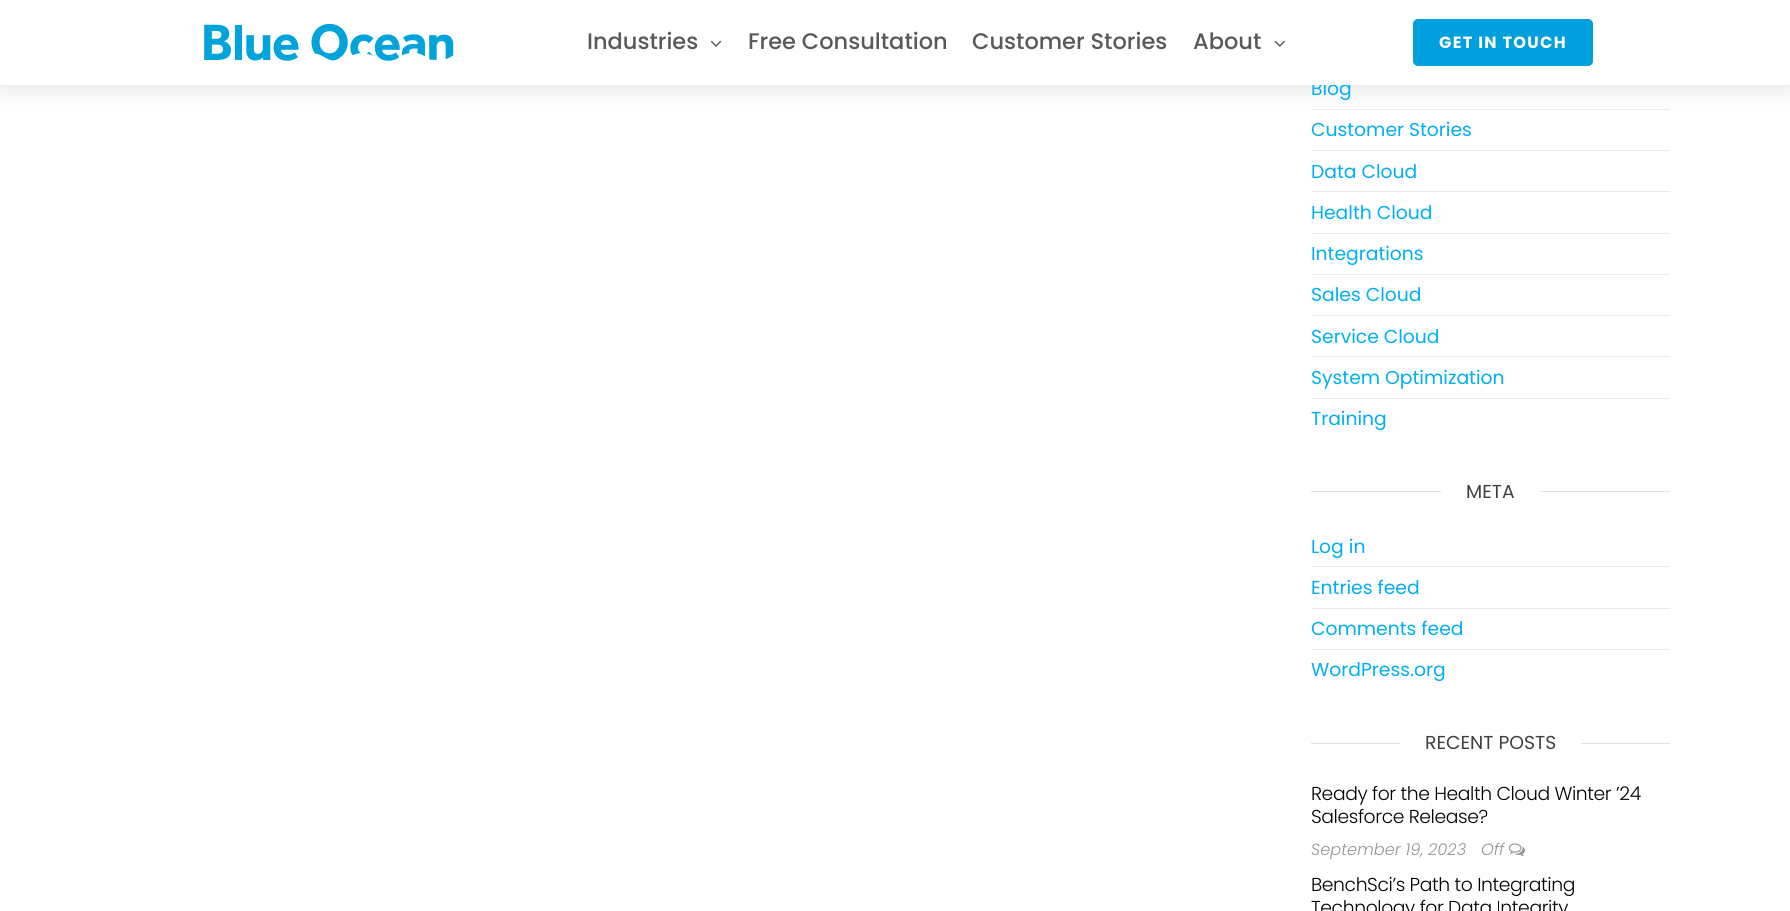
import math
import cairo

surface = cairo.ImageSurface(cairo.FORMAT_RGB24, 1790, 911)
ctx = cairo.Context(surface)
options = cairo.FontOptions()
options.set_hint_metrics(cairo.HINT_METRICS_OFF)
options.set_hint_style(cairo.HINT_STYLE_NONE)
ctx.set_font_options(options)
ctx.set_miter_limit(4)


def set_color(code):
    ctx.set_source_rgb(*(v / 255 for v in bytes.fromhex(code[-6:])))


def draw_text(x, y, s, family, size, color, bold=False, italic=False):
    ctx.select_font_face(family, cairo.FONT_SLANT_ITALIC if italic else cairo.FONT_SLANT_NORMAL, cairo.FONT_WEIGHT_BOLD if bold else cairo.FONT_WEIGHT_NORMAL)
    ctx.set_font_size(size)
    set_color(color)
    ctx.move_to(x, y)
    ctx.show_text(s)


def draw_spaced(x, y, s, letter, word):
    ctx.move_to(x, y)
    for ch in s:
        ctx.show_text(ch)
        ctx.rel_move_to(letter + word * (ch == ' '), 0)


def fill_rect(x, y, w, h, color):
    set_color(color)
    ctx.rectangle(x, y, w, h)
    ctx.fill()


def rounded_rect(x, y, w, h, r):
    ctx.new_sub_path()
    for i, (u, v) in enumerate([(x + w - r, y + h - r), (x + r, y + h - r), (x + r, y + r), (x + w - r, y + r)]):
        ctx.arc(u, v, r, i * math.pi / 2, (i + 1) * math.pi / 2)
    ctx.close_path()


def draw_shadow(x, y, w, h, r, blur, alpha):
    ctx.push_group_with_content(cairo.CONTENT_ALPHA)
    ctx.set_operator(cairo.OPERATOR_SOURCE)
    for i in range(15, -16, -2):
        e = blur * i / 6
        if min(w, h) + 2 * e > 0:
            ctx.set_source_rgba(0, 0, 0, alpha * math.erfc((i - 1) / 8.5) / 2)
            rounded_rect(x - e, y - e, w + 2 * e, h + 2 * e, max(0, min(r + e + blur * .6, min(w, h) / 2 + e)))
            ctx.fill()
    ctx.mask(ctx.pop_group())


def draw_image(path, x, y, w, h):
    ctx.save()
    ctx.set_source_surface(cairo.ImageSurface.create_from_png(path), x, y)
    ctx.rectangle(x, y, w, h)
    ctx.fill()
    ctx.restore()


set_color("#ffffff")
ctx.paint()
fill_rect(1311, 109, 359, 1, "#ebebeb")
set_color("#000000")
draw_shadow(0, 5, 1790, 85, 0, 10, 0.1)
draw_text(1311, 95, "Blog", "Poppins", 18.75, "#00aff2")
fill_rect(0, 0, 1790, 85, "#ffffff")
draw_image("assets/img1.png", 204, 24, 250, 37)
draw_text(587, 49, "Industries", "Poppins Medium", 22.5, "#595959")
draw_image("assets/img2.png", 710, 40, 12, 7)
draw_text(748, 49, "Free Consultation", "Poppins Medium", 22.5, "#595959")
draw_text(972, 49, "Customer Stories", "Poppins Medium", 22.5, "#595959")
draw_text(1193, 49, "About", "Poppins Medium", 22.5, "#595959")
draw_image("assets/img3.png", 1274, 40, 11, 7)
set_color("#009fdd")
rounded_rect(1413.5, 19.5, 179, 46, 4.5)
ctx.fill_preserve()
set_color("#00a4da")
ctx.set_line_width(1)
ctx.stroke()
ctx.select_font_face("Poppins", cairo.FONT_SLANT_NORMAL, cairo.FONT_WEIGHT_BOLD)
ctx.set_font_size(16.25)
set_color("#ffffff")
draw_spaced(1439, 48, "GET IN TOUCH", 1.25, 0)
fill_rect(1311, 150, 359, 1, "#ebebeb")
draw_text(1311, 136, "Customer Stories", "Poppins", 18.75, "#00aff2")
fill_rect(1311, 191, 359, 1, "#ebebeb")
draw_text(1311, 178, "Data Cloud", "Poppins", 18.75, "#00aff2")
fill_rect(1311, 233, 359, 1, "#ebebeb")
draw_text(1311, 219, "Health Cloud", "Poppins", 18.75, "#00aff2")
fill_rect(1311, 274, 359, 1, "#ebebeb")
draw_text(1311, 260, "Integrations", "Poppins", 18.75, "#00aff2")
fill_rect(1311, 315, 359, 1, "#ebebeb")
draw_text(1311, 301, "Sales Cloud", "Poppins", 18.75, "#00aff2")
fill_rect(1311, 356, 359, 1, "#ebebeb")
draw_text(1311, 343, "Service Cloud", "Poppins", 18.75, "#00aff2")
fill_rect(1311, 398, 359, 1, "#ebebeb")
draw_text(1311, 384, "System Optimization", "Poppins", 18.75, "#00aff2")
draw_text(1311, 425, "Training", "Poppins", 18.75, "#00aff2")
fill_rect(1311, 491, 359, 1, "#e2e2e2")
fill_rect(1441, 491, 99, 1, "#ffffff")
draw_text(1466, 498, "META", "Poppins", 18.75, "#404040")
fill_rect(1311, 566, 359, 1, "#ebebeb")
draw_text(1311, 553, "Log in", "Poppins", 18.75, "#00aff2")
fill_rect(1311, 608, 359, 1, "#ebebeb")
draw_text(1311, 594, "Entries feed", "Poppins", 18.75, "#00aff2")
fill_rect(1311, 649, 359, 1, "#ebebeb")
draw_text(1311, 635, "Comments feed", "Poppins", 18.75, "#00aff2")
draw_text(1311, 676, "WordPress.org", "Poppins", 18.75, "#00aff2")
fill_rect(1311, 743, 359, 1, "#e2e2e2")
fill_rect(1400, 743, 181, 1, "#ffffff")
draw_text(1425, 749, "RECENT POSTS", "Poppins", 18.75, "#404040")
ctx.select_font_face("Poppins Light")
set_color("#000000")
draw_spaced(1311, 800, "Ready for the Health Cloud Winter ’24", -0.4, 0)
draw_spaced(1311, 823, "Salesforce Release?", -0.4, 0)
draw_text(1311, 855, "September 19, 2023", "Poppins Light", 16.25, "#959595", italic=True)
draw_text(1481, 855, "Off", "Poppins Light", 16.25, "#959595", italic=True)
draw_image("assets/img4.png", 1508, 843, 17, 14)
ctx.select_font_face("Poppins Light")
ctx.set_font_size(18.75)
set_color("#000000")
draw_spaced(1311, 891, "BenchSci’s Path to Integrating", -0.4, 0)
draw_spaced(1311, 914, "Technology for Data Integrity", -0.4, 0)
surface.write_to_png("output.png")
